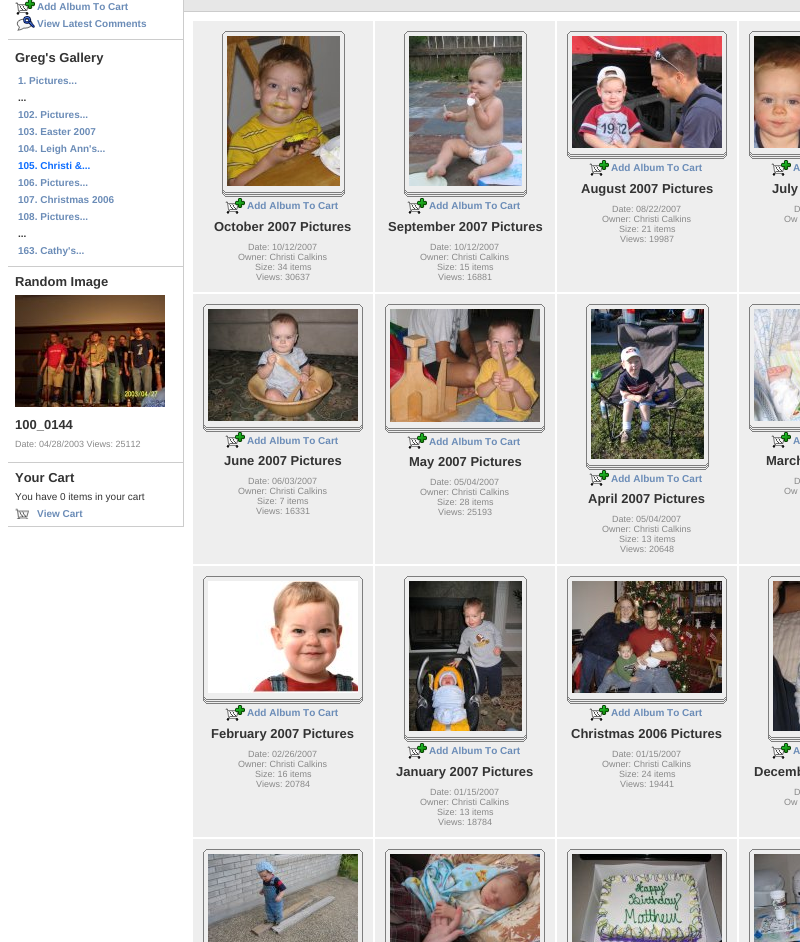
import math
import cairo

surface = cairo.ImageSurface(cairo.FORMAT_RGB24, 800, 942)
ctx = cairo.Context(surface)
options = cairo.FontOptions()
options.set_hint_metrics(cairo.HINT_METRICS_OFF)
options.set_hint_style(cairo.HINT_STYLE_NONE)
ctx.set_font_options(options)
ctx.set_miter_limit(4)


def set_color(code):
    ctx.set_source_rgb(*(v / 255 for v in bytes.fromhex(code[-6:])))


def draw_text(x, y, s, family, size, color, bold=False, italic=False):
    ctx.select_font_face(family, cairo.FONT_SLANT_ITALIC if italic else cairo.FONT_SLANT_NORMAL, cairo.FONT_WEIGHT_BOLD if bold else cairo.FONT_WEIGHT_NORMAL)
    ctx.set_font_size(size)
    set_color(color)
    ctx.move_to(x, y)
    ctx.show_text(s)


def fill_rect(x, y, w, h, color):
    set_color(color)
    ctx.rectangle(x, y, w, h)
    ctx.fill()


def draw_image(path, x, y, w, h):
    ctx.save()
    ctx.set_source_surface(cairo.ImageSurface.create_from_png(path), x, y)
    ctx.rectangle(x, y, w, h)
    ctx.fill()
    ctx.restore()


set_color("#ffffff")
ctx.paint()
fill_rect(183, 0, 1, 527, "#cccccc")
fill_rect(8, 39, 175, 1, "#cccccc")
draw_image("assets/img1.png", 15, 0, 20, 15)
draw_text(37, 10, "Add Album To Cart", "Liberation Sans", 10, "#6b8cb7", bold=True)
draw_image("assets/img2.png", 16, 16, 19, 15)
draw_text(37, 27, "View Latest Comments", "Liberation Sans", 10, "#6b8cb7", bold=True)
fill_rect(8, 266, 175, 1, "#cccccc")
draw_text(15, 62, "Greg's Gallery", "Liberation Sans", 13, "#333333", bold=True)
draw_text(18, 84, "1. Pictures...", "Liberation Sans", 10, "#6b8cb7", bold=True)
draw_text(18, 101, "...", "Liberation Sans", 10, "#333333", bold=True)
draw_text(18, 118, "102. Pictures...", "Liberation Sans", 10, "#6b8cb7", bold=True)
draw_text(18, 135, "103. Easter 2007", "Liberation Sans", 10, "#6b8cb7", bold=True)
draw_text(18, 152, "104. Leigh Ann's...", "Liberation Sans", 10, "#6b8cb7", bold=True)
draw_text(18, 169, "105. Christi &...", "Liberation Sans", 10, "#0b6cff", bold=True)
draw_text(18, 186, "106. Pictures...", "Liberation Sans", 10, "#6b8cb7", bold=True)
draw_text(18, 203, "107. Christmas 2006", "Liberation Sans", 10, "#6b8cb7", bold=True)
draw_text(18, 220, "108. Pictures...", "Liberation Sans", 10, "#6b8cb7", bold=True)
draw_text(18, 237, "...", "Liberation Sans", 10, "#333333", bold=True)
draw_text(18, 254, "163. Cathy's...", "Liberation Sans", 10, "#6b8cb7", bold=True)
fill_rect(8, 462, 175, 1, "#cccccc")
draw_text(15, 286, "Random Image", "Liberation Sans", 13, "#333333", bold=True)
draw_image("assets/img3.png", 15, 295, 150, 112)
draw_text(15, 429, "100_0144", "Liberation Sans", 13, "#333333", bold=True)
draw_text(15, 447, "Date: 04/28/2003 Views: 25112", "Liberation Sans", 9, "#888888")
fill_rect(8, 526, 175, 1, "#cccccc")
draw_text(15, 482, "Your Cart", "Liberation Sans", 13, "#333333", bold=True)
draw_text(15, 500, "You have 0 items in your cart", "Liberation Sans", 10, "#333333")
draw_image("assets/img4.png", 15, 508, 14, 11)
draw_text(37, 517, "View Cart", "Liberation Sans", 10, "#6b8cb7", bold=True)
fill_rect(184, 0, 616, 11, "#e7e7e7")
fill_rect(184, 11, 616, 1, "#cccccc")
fill_rect(557, 21, 180, 271, "#eeeeee")
draw_image("assets/img5.png", 567, 31, 5, 5)
fill_rect(572, 31, 150, 1, "#7d7d7d")
draw_image("assets/img6.png", 722, 31, 5, 5)
fill_rect(567, 36, 1, 112, "#7d7d7d")
draw_image("assets/img7.png", 572, 36, 150, 112)
fill_rect(726, 36, 1, 112, "#7d7d7d")
draw_image("assets/img8.png", 567, 148, 5, 11)
draw_image("assets/img9.png", 572, 154, 150, 5)
draw_image("assets/img10.png", 722, 148, 5, 11)
draw_image("assets/img11.png", 589, 160, 20, 16)
draw_text(611, 171, "Add Album To Cart", "Liberation Sans", 10, "#6b8cb7", bold=True)
draw_text(581, 193, "August 2007 Pictures", "Liberation Sans", 13, "#333333", bold=True)
draw_text(612, 212, "Date: 08/22/2007", "Liberation Sans", 9, "#888888")
draw_text(602, 222, "Owner: Christi Calkins", "Liberation Sans", 9, "#888888")
draw_text(619, 232, "Size: 21 items", "Liberation Sans", 9, "#888888")
draw_text(620, 242, "Views: 19987", "Liberation Sans", 9, "#888888")
fill_rect(739, 21, 61, 271, "#eeeeee")
draw_image("assets/img5.png", 749, 31, 5, 5)
fill_rect(754, 31, 46, 1, "#7d7d7d")
fill_rect(749, 36, 1, 112, "#7d7d7d")
draw_image("assets/img12.png", 754, 36, 46, 112)
draw_image("assets/img8.png", 749, 148, 5, 11)
draw_image("assets/img13.png", 754, 154, 46, 5)
draw_image("assets/img11.png", 771, 160, 20, 16)
draw_text(793, 171, "A", "Liberation Sans", 10, "#6b8cb7", bold=True)
draw_text(772, 193, "July", "Liberation Sans", 13, "#333333", bold=True)
draw_text(794, 212, "D", "Liberation Sans", 9, "#888888")
draw_text(784, 222, "Ow", "Liberation Sans", 9, "#888888")
fill_rect(193, 21, 180, 271, "#eeeeee")
draw_image("assets/img5.png", 222, 31, 5, 5)
fill_rect(227, 31, 113, 1, "#7d7d7d")
draw_image("assets/img6.png", 340, 31, 5, 5)
fill_rect(222, 36, 1, 150, "#7d7d7d")
draw_image("assets/img14.png", 227, 36, 113, 150)
fill_rect(344, 36, 1, 150, "#7d7d7d")
draw_image("assets/img8.png", 222, 186, 5, 11)
draw_image("assets/img15.png", 227, 192, 113, 5)
draw_image("assets/img10.png", 340, 186, 5, 11)
draw_image("assets/img11.png", 225, 198, 20, 16)
draw_text(247, 209, "Add Album To Cart", "Liberation Sans", 10, "#6b8cb7", bold=True)
draw_text(214, 231, "October 2007 Pictures", "Liberation Sans", 13, "#333333", bold=True)
draw_text(248, 250, "Date: 10/12/2007", "Liberation Sans", 9, "#888888")
draw_text(238, 260, "Owner: Christi Calkins", "Liberation Sans", 9, "#888888")
draw_text(255, 270, "Size: 34 items", "Liberation Sans", 9, "#888888")
draw_text(256, 280, "Views: 30637", "Liberation Sans", 9, "#888888")
fill_rect(375, 21, 180, 271, "#eeeeee")
draw_image("assets/img5.png", 404, 31, 5, 5)
fill_rect(409, 31, 113, 1, "#7d7d7d")
draw_image("assets/img6.png", 522, 31, 5, 5)
fill_rect(404, 36, 1, 150, "#7d7d7d")
draw_image("assets/img16.png", 409, 36, 113, 150)
fill_rect(526, 36, 1, 150, "#7d7d7d")
draw_image("assets/img8.png", 404, 186, 5, 11)
draw_image("assets/img15.png", 409, 192, 113, 5)
draw_image("assets/img10.png", 522, 186, 5, 11)
draw_image("assets/img11.png", 407, 198, 20, 16)
draw_text(429, 209, "Add Album To Cart", "Liberation Sans", 10, "#6b8cb7", bold=True)
draw_text(388, 231, "September 2007 Pictures", "Liberation Sans", 13, "#333333", bold=True)
draw_text(430, 250, "Date: 10/12/2007", "Liberation Sans", 9, "#888888")
draw_text(420, 260, "Owner: Christi Calkins", "Liberation Sans", 9, "#888888")
draw_text(437, 270, "Size: 15 items", "Liberation Sans", 9, "#888888")
draw_text(438, 280, "Views: 16881", "Liberation Sans", 9, "#888888")
fill_rect(193, 294, 180, 270, "#eeeeee")
draw_image("assets/img5.png", 203, 304, 5, 5)
fill_rect(208, 304, 150, 1, "#7d7d7d")
draw_image("assets/img6.png", 358, 304, 5, 5)
fill_rect(203, 309, 1, 112, "#7d7d7d")
draw_image("assets/img17.png", 208, 309, 150, 112)
fill_rect(362, 309, 1, 112, "#7d7d7d")
draw_image("assets/img8.png", 203, 421, 5, 11)
draw_image("assets/img9.png", 208, 427, 150, 5)
draw_image("assets/img10.png", 358, 421, 5, 11)
draw_image("assets/img11.png", 225, 432, 20, 16)
draw_text(247, 444, "Add Album To Cart", "Liberation Sans", 10, "#6b8cb7", bold=True)
draw_text(224, 465, "June 2007 Pictures", "Liberation Sans", 13, "#333333", bold=True)
draw_text(248, 484, "Date: 06/03/2007", "Liberation Sans", 9, "#888888")
draw_text(238, 494, "Owner: Christi Calkins", "Liberation Sans", 9, "#888888")
draw_text(257, 504, "Size: 7 items", "Liberation Sans", 9, "#888888")
draw_text(256, 514, "Views: 16331", "Liberation Sans", 9, "#888888")
fill_rect(375, 294, 180, 270, "#eeeeee")
draw_image("assets/img5.png", 385, 304, 5, 5)
fill_rect(390, 304, 150, 1, "#7d7d7d")
draw_image("assets/img6.png", 540, 304, 5, 5)
fill_rect(385, 309, 1, 113, "#7d7d7d")
draw_image("assets/img18.png", 390, 309, 150, 113)
fill_rect(544, 309, 1, 113, "#7d7d7d")
draw_image("assets/img8.png", 385, 422, 5, 11)
draw_image("assets/img9.png", 390, 428, 150, 5)
draw_image("assets/img10.png", 540, 422, 5, 11)
draw_image("assets/img11.png", 407, 433, 20, 16)
draw_text(429, 445, "Add Album To Cart", "Liberation Sans", 10, "#6b8cb7", bold=True)
draw_text(409, 466, "May 2007 Pictures", "Liberation Sans", 13, "#333333", bold=True)
draw_text(430, 485, "Date: 05/04/2007", "Liberation Sans", 9, "#888888")
draw_text(420, 495, "Owner: Christi Calkins", "Liberation Sans", 9, "#888888")
draw_text(437, 505, "Size: 28 items", "Liberation Sans", 9, "#888888")
draw_text(438, 515, "Views: 25193", "Liberation Sans", 9, "#888888")
fill_rect(739, 294, 61, 270, "#eeeeee")
draw_image("assets/img5.png", 749, 304, 5, 5)
fill_rect(754, 304, 46, 1, "#7d7d7d")
fill_rect(749, 309, 1, 112, "#7d7d7d")
draw_image("assets/img19.png", 754, 309, 46, 112)
draw_image("assets/img8.png", 749, 421, 5, 11)
draw_image("assets/img13.png", 754, 427, 46, 5)
draw_image("assets/img11.png", 771, 432, 20, 16)
draw_text(793, 444, "A", "Liberation Sans", 10, "#6b8cb7", bold=True)
draw_text(766, 465, "March", "Liberation Sans", 13, "#333333", bold=True)
draw_text(794, 484, "D", "Liberation Sans", 9, "#888888")
draw_text(784, 494, "Ow", "Liberation Sans", 9, "#888888")
fill_rect(557, 294, 180, 270, "#eeeeee")
draw_image("assets/img5.png", 586, 304, 5, 5)
fill_rect(591, 304, 113, 1, "#7d7d7d")
draw_image("assets/img6.png", 704, 304, 5, 5)
fill_rect(586, 309, 1, 150, "#7d7d7d")
draw_image("assets/img20.png", 591, 309, 113, 150)
fill_rect(708, 309, 1, 150, "#7d7d7d")
draw_image("assets/img8.png", 586, 459, 5, 11)
draw_image("assets/img15.png", 591, 465, 113, 5)
draw_image("assets/img10.png", 704, 459, 5, 11)
draw_image("assets/img11.png", 589, 470, 20, 16)
draw_text(611, 482, "Add Album To Cart", "Liberation Sans", 10, "#6b8cb7", bold=True)
draw_text(588, 503, "April 2007 Pictures", "Liberation Sans", 13, "#333333", bold=True)
draw_text(612, 522, "Date: 05/04/2007", "Liberation Sans", 9, "#888888")
draw_text(602, 532, "Owner: Christi Calkins", "Liberation Sans", 9, "#888888")
draw_text(619, 542, "Size: 13 items", "Liberation Sans", 9, "#888888")
draw_text(620, 552, "Views: 20648", "Liberation Sans", 9, "#888888")
fill_rect(193, 566, 180, 271, "#eeeeee")
draw_image("assets/img5.png", 203, 576, 5, 5)
fill_rect(208, 576, 150, 1, "#7d7d7d")
draw_image("assets/img6.png", 358, 576, 5, 5)
fill_rect(203, 581, 1, 112, "#7d7d7d")
draw_image("assets/img21.png", 208, 581, 150, 112)
fill_rect(362, 581, 1, 112, "#7d7d7d")
draw_image("assets/img8.png", 203, 693, 5, 11)
draw_image("assets/img9.png", 208, 699, 150, 5)
draw_image("assets/img10.png", 358, 693, 5, 11)
draw_image("assets/img11.png", 225, 705, 20, 16)
draw_text(247, 716, "Add Album To Cart", "Liberation Sans", 10, "#6b8cb7", bold=True)
draw_text(211, 738, "February 2007 Pictures", "Liberation Sans", 13, "#333333", bold=True)
draw_text(248, 757, "Date: 02/26/2007", "Liberation Sans", 9, "#888888")
draw_text(238, 767, "Owner: Christi Calkins", "Liberation Sans", 9, "#888888")
draw_text(255, 777, "Size: 16 items", "Liberation Sans", 9, "#888888")
draw_text(256, 787, "Views: 20784", "Liberation Sans", 9, "#888888")
fill_rect(375, 566, 180, 271, "#eeeeee")
draw_image("assets/img5.png", 404, 576, 5, 5)
fill_rect(409, 576, 113, 1, "#7d7d7d")
draw_image("assets/img6.png", 522, 576, 5, 5)
fill_rect(404, 581, 1, 150, "#7d7d7d")
draw_image("assets/img22.png", 409, 581, 113, 150)
fill_rect(526, 581, 1, 150, "#7d7d7d")
draw_image("assets/img8.png", 404, 731, 5, 11)
draw_image("assets/img15.png", 409, 737, 113, 5)
draw_image("assets/img10.png", 522, 731, 5, 11)
draw_image("assets/img11.png", 407, 743, 20, 16)
draw_text(429, 754, "Add Album To Cart", "Liberation Sans", 10, "#6b8cb7", bold=True)
draw_text(396, 776, "January 2007 Pictures", "Liberation Sans", 13, "#333333", bold=True)
draw_text(430, 795, "Date: 01/15/2007", "Liberation Sans", 9, "#888888")
draw_text(420, 805, "Owner: Christi Calkins", "Liberation Sans", 9, "#888888")
draw_text(437, 815, "Size: 13 items", "Liberation Sans", 9, "#888888")
draw_text(438, 825, "Views: 18784", "Liberation Sans", 9, "#888888")
fill_rect(557, 566, 180, 271, "#eeeeee")
draw_image("assets/img5.png", 567, 576, 5, 5)
fill_rect(572, 576, 150, 1, "#7d7d7d")
draw_image("assets/img6.png", 722, 576, 5, 5)
fill_rect(567, 581, 1, 112, "#7d7d7d")
draw_image("assets/img23.png", 572, 581, 150, 112)
fill_rect(726, 581, 1, 112, "#7d7d7d")
draw_image("assets/img8.png", 567, 693, 5, 11)
draw_image("assets/img9.png", 572, 699, 150, 5)
draw_image("assets/img10.png", 722, 693, 5, 11)
draw_image("assets/img11.png", 589, 705, 20, 16)
draw_text(611, 716, "Add Album To Cart", "Liberation Sans", 10, "#6b8cb7", bold=True)
draw_text(571, 738, "Christmas 2006 Pictures", "Liberation Sans", 13, "#333333", bold=True)
draw_text(612, 757, "Date: 01/15/2007", "Liberation Sans", 9, "#888888")
draw_text(602, 767, "Owner: Christi Calkins", "Liberation Sans", 9, "#888888")
draw_text(619, 777, "Size: 24 items", "Liberation Sans", 9, "#888888")
draw_text(620, 787, "Views: 19441", "Liberation Sans", 9, "#888888")
fill_rect(739, 566, 61, 271, "#eeeeee")
draw_image("assets/img5.png", 768, 576, 5, 5)
fill_rect(773, 576, 27, 1, "#7d7d7d")
fill_rect(768, 581, 1, 150, "#7d7d7d")
draw_image("assets/img24.png", 773, 581, 27, 150)
draw_image("assets/img8.png", 768, 731, 5, 11)
draw_image("assets/img25.png", 773, 737, 27, 5)
draw_image("assets/img11.png", 771, 743, 20, 16)
draw_text(793, 754, "A", "Liberation Sans", 10, "#6b8cb7", bold=True)
draw_text(754, 776, "Decemb", "Liberation Sans", 13, "#333333", bold=True)
draw_text(794, 795, "D", "Liberation Sans", 9, "#888888")
draw_text(784, 805, "Ow", "Liberation Sans", 9, "#888888")
fill_rect(193, 839, 180, 103, "#eeeeee")
draw_image("assets/img5.png", 203, 849, 5, 5)
fill_rect(208, 849, 150, 1, "#7d7d7d")
draw_image("assets/img6.png", 358, 849, 5, 5)
fill_rect(203, 854, 1, 88, "#7d7d7d")
draw_image("assets/img26.png", 208, 854, 150, 88)
fill_rect(362, 854, 1, 88, "#7d7d7d")
fill_rect(375, 839, 180, 103, "#eeeeee")
draw_image("assets/img5.png", 385, 849, 5, 5)
fill_rect(390, 849, 150, 1, "#7d7d7d")
draw_image("assets/img6.png", 540, 849, 5, 5)
fill_rect(385, 854, 1, 88, "#7d7d7d")
draw_image("assets/img27.png", 390, 854, 150, 88)
fill_rect(544, 854, 1, 88, "#7d7d7d")
fill_rect(557, 839, 180, 103, "#eeeeee")
draw_image("assets/img5.png", 567, 849, 5, 5)
fill_rect(572, 849, 150, 1, "#7d7d7d")
draw_image("assets/img6.png", 722, 849, 5, 5)
fill_rect(567, 854, 1, 88, "#7d7d7d")
draw_image("assets/img28.png", 572, 854, 150, 88)
fill_rect(726, 854, 1, 88, "#7d7d7d")
fill_rect(739, 839, 61, 103, "#eeeeee")
draw_image("assets/img5.png", 749, 849, 5, 5)
fill_rect(754, 849, 46, 1, "#7d7d7d")
fill_rect(749, 854, 1, 88, "#7d7d7d")
draw_image("assets/img29.png", 754, 854, 46, 88)
surface.write_to_png("output.png")
